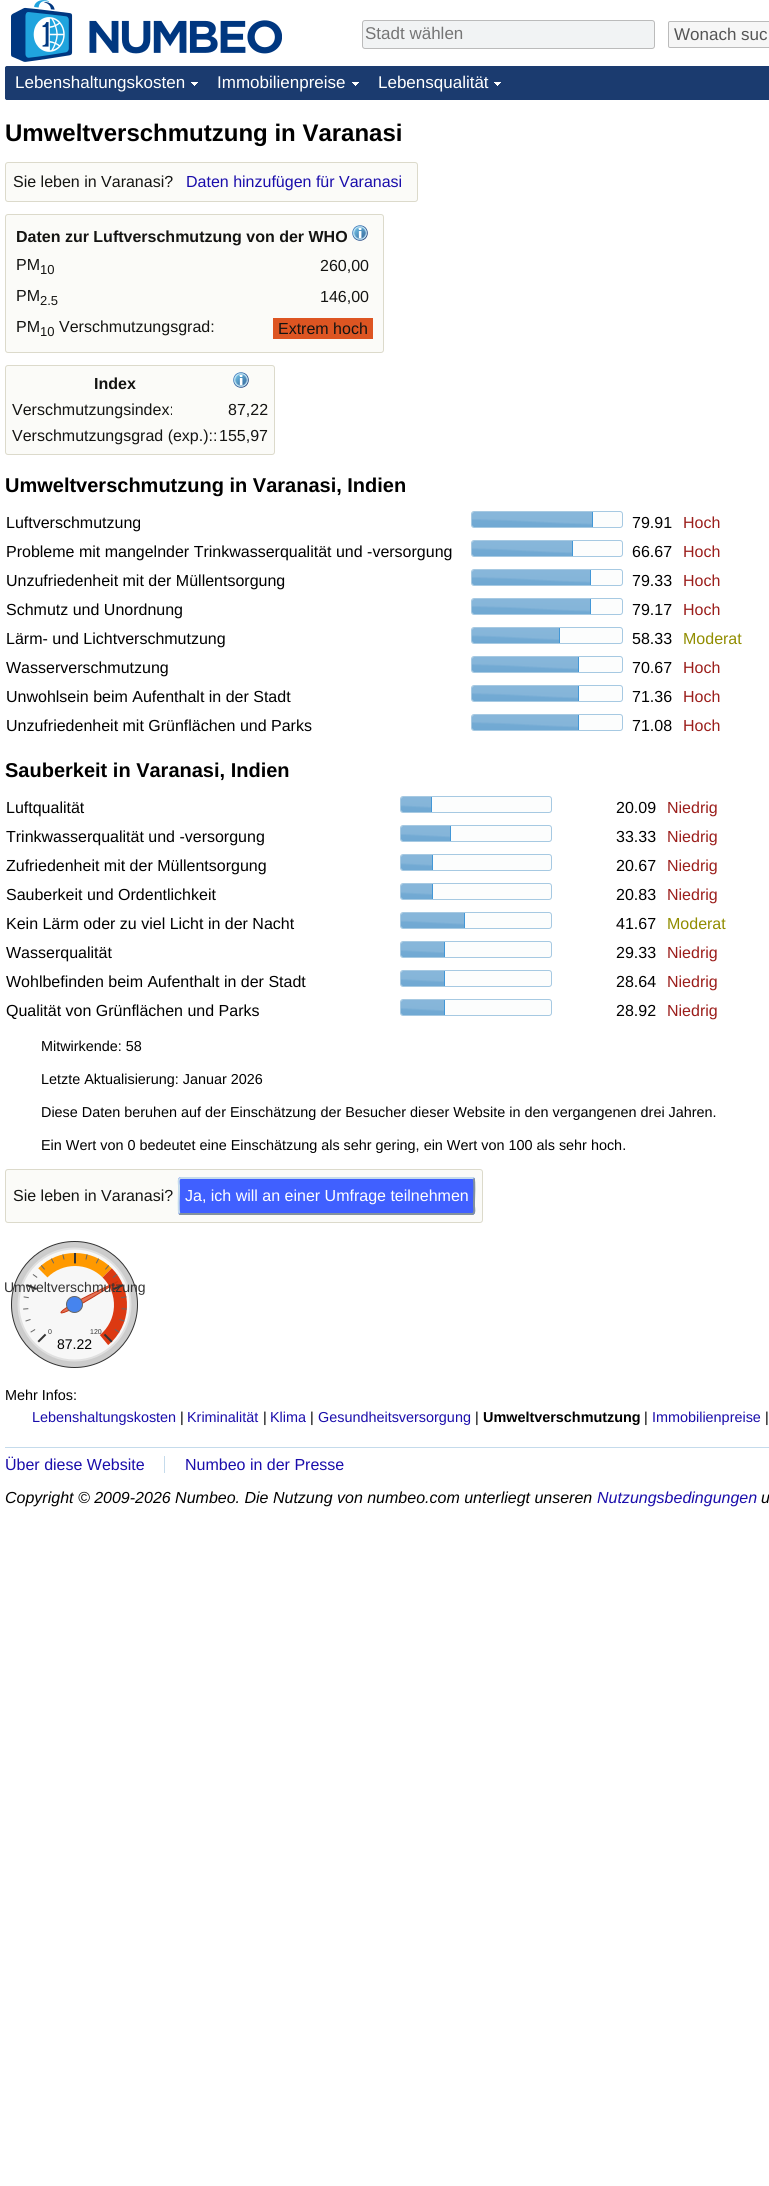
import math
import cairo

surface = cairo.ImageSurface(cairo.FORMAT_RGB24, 769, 2186)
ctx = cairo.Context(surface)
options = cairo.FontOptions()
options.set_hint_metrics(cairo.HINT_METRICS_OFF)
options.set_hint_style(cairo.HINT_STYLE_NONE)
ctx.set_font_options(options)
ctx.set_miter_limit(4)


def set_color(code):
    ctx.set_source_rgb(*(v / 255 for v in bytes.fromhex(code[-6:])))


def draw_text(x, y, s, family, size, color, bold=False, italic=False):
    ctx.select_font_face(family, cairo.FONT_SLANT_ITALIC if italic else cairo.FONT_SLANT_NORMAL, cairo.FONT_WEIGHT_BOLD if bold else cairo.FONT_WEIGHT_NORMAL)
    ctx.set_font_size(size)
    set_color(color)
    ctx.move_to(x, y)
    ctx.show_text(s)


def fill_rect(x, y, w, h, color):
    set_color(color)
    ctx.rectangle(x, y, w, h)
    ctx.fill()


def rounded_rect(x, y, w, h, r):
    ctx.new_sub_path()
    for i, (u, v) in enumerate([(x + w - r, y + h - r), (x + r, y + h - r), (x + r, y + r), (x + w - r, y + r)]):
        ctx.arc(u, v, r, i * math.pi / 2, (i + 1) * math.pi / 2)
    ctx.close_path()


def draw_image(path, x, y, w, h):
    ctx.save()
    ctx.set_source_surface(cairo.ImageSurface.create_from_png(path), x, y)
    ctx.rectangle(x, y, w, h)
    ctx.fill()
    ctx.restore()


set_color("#ffffff")
ctx.paint()
draw_image("assets/img1.png", 11, 0, 62, 62)
draw_image("assets/img2.png", 89, 20, 193, 34)
set_color("#f1f3f4")
rounded_rect(362.5, 20.5, 292, 28, 2.5)
ctx.fill_preserve()
set_color("#bbbbbb")
ctx.set_line_width(1)
ctx.stroke()
draw_text(365, 39, "Stadt wählen", "Liberation Sans", 17, "#757575")
set_color("#f6f6f6")
rounded_rect(668.5, 21.5, 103, 26, 1.5)
ctx.fill_preserve()
set_color("#bbbbbb")
ctx.stroke()
draw_text(674, 40, "Wonach suc", "Liberation Sans", 17, "#555555")
set_color("#1b3b6f")
rounded_rect(5, 66, 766, 34, 2)
ctx.fill()
rounded_rect(5, 66, 202, 34, 3)
ctx.fill()
draw_image("assets/img3.png", 191, 82, 7, 4)
draw_text(15, 88, "Lebenshaltungskosten", "Liberation Sans", 17, "#ffffff")
draw_image("assets/img3.png", 352, 82, 7, 4)
draw_text(217, 88, "Immobilienpreise", "Liberation Sans", 17, "#ffffff")
draw_image("assets/img3.png", 494, 82, 7, 4)
draw_text(378, 88, "Lebensqualität", "Liberation Sans", 17, "#ffffff")
draw_text(5, 141, "Umweltverschmutzung in Varanasi", "Liberation Sans", 24, "#000000", bold=True)
set_color("#fbfbf8")
rounded_rect(5.5, 162.5, 412, 39, 2.5)
ctx.fill_preserve()
set_color("#dcdacb")
ctx.stroke()
draw_text(13, 187, "Sie leben in Varanasi?", "Liberation Sans", 16, "#141412")
draw_text(186, 187, "Daten hinzufügen für Varanasi", "Liberation Sans", 16, "#1a0dab")
set_color("#fbfbf8")
rounded_rect(5.5, 214.5, 378, 138, 2.5)
ctx.fill_preserve()
set_color("#dcdacb")
ctx.stroke()
draw_text(16, 242, "Daten zur Luftverschmutzung von der WHO", "Liberation Sans", 16, "#141412", bold=True)
draw_image("assets/img4.png", 352, 225, 16, 16)
draw_text(16, 270, "PM", "Liberation Sans", 16, "#141412")
draw_text(40, 274, "10", "Liberation Sans", 13, "#141412")
draw_text(320, 271, "260,00", "Liberation Sans", 16, "#141412")
draw_text(16, 301, "PM", "Liberation Sans", 16, "#141412")
draw_text(40, 305, "2.5", "Liberation Sans", 13, "#141412")
draw_text(320, 302, "146,00", "Liberation Sans", 16, "#141412")
draw_text(16, 332, "PM", "Liberation Sans", 16, "#141412")
draw_text(40, 336, "10", "Liberation Sans", 13, "#141412")
draw_text(59, 332, "Verschmutzungsgrad:", "Liberation Sans", 16, "#141412")
fill_rect(273, 318, 100, 21, "#dd5522")
draw_text(278, 334, "Extrem hoch", "Liberation Sans", 16, "#141412")
set_color("#fbfbf8")
rounded_rect(5.5, 365.5, 269, 89, 2.5)
ctx.fill_preserve()
set_color("#dcdacb")
ctx.stroke()
draw_text(94, 389, "Index", "Liberation Sans", 16, "#141412", bold=True)
draw_image("assets/img4.png", 233, 372, 16, 16)
draw_text(12, 415, "Verschmutzungsindex:", "Liberation Sans", 16, "#141412")
draw_text(228, 415, "87,22", "Liberation Sans", 16, "#141412")
draw_text(12, 441, "Verschmutzungsgrad (exp.)::", "Liberation Sans", 16, "#141412")
draw_text(219, 441, "155,97", "Liberation Sans", 16, "#141412")
draw_text(5, 492, "Umweltverschmutzung in Varanasi, Indien", "Liberation Sans", 20, "#000000", bold=True)
draw_text(6, 528, "Luftverschmutzung", "Liberation Sans", 16, "#000000")
set_color("#fcfdfd")
rounded_rect(471.5, 511.5, 151, 16, 2.5)
ctx.fill_preserve()
set_color("#a6c9e2")
ctx.stroke()
draw_image("assets/img5.png", 472, 512, 120, 15)
fill_rect(592, 512, 1, 15, "#4297d7")
draw_text(632, 528, "79.91", "Liberation Sans", 16, "#000000")
draw_text(683, 528, "Hoch", "Liberation Sans", 16, "#9b1e1b")
draw_text(6, 557, "Probleme mit mangelnder Trinkwasserqualität und -versorgung", "Liberation Sans", 16, "#000000")
set_color("#fcfdfd")
rounded_rect(471.5, 540.5, 151, 16, 2.5)
ctx.fill_preserve()
set_color("#a6c9e2")
ctx.stroke()
draw_image("assets/img6.png", 472, 541, 100, 15)
fill_rect(572, 541, 1, 15, "#4297d7")
draw_text(632, 557, "66.67", "Liberation Sans", 16, "#000000")
draw_text(683, 557, "Hoch", "Liberation Sans", 16, "#9b1e1b")
draw_text(6, 586, "Unzufriedenheit mit der Müllentsorgung", "Liberation Sans", 16, "#000000")
set_color("#fcfdfd")
rounded_rect(471.5, 569.5, 151, 16, 2.5)
ctx.fill_preserve()
set_color("#a6c9e2")
ctx.stroke()
draw_image("assets/img7.png", 472, 570, 118, 15)
fill_rect(590, 570, 1, 15, "#4297d7")
draw_text(632, 586, "79.33", "Liberation Sans", 16, "#000000")
draw_text(683, 586, "Hoch", "Liberation Sans", 16, "#9b1e1b")
draw_text(6, 615, "Schmutz und Unordnung", "Liberation Sans", 16, "#000000")
set_color("#fcfdfd")
rounded_rect(471.5, 598.5, 151, 16, 2.5)
ctx.fill_preserve()
set_color("#a6c9e2")
ctx.stroke()
draw_image("assets/img7.png", 472, 599, 118, 15)
fill_rect(590, 599, 1, 15, "#4297d7")
draw_text(632, 615, "79.17", "Liberation Sans", 16, "#000000")
draw_text(683, 615, "Hoch", "Liberation Sans", 16, "#9b1e1b")
draw_text(6, 644, "Lärm- und Lichtverschmutzung", "Liberation Sans", 16, "#000000")
set_color("#fcfdfd")
rounded_rect(471.5, 627.5, 151, 16, 2.5)
ctx.fill_preserve()
set_color("#a6c9e2")
ctx.stroke()
draw_image("assets/img8.png", 472, 628, 87, 15)
fill_rect(559, 628, 1, 15, "#4297d7")
draw_text(632, 644, "58.33", "Liberation Sans", 16, "#000000")
draw_text(683, 644, "Moderat", "Liberation Sans", 16, "#918d00")
draw_text(6, 673, "Wasserverschmutzung", "Liberation Sans", 16, "#000000")
set_color("#fcfdfd")
rounded_rect(471.5, 656.5, 151, 16, 2.5)
ctx.fill_preserve()
set_color("#a6c9e2")
ctx.stroke()
draw_image("assets/img9.png", 472, 657, 106, 15)
fill_rect(578, 657, 1, 15, "#4297d7")
draw_text(632, 673, "70.67", "Liberation Sans", 16, "#000000")
draw_text(683, 673, "Hoch", "Liberation Sans", 16, "#9b1e1b")
draw_text(6, 702, "Unwohlsein beim Aufenthalt in der Stadt", "Liberation Sans", 16, "#000000")
set_color("#fcfdfd")
rounded_rect(471.5, 685.5, 151, 16, 2.5)
ctx.fill_preserve()
set_color("#a6c9e2")
ctx.stroke()
draw_image("assets/img9.png", 472, 686, 106, 15)
fill_rect(578, 686, 1, 15, "#4297d7")
draw_text(632, 702, "71.36", "Liberation Sans", 16, "#000000")
draw_text(683, 702, "Hoch", "Liberation Sans", 16, "#9b1e1b")
draw_text(6, 731, "Unzufriedenheit mit Grünflächen und Parks", "Liberation Sans", 16, "#000000")
set_color("#fcfdfd")
rounded_rect(471.5, 714.5, 151, 16, 2.5)
ctx.fill_preserve()
set_color("#a6c9e2")
ctx.stroke()
draw_image("assets/img9.png", 472, 715, 106, 15)
fill_rect(578, 715, 1, 15, "#4297d7")
draw_text(632, 731, "71.08", "Liberation Sans", 16, "#000000")
draw_text(683, 731, "Hoch", "Liberation Sans", 16, "#9b1e1b")
draw_text(5, 777, "Sauberkeit in Varanasi, Indien", "Liberation Sans", 20, "#000000", bold=True)
draw_text(6, 813, "Luftqualität", "Liberation Sans", 16, "#000000")
set_color("#fcfdfd")
rounded_rect(400.5, 796.5, 151, 16, 2.5)
ctx.fill_preserve()
set_color("#a6c9e2")
ctx.stroke()
draw_image("assets/img10.png", 401, 797, 30, 15)
fill_rect(431, 797, 1, 15, "#4297d7")
draw_text(616, 813, "20.09", "Liberation Sans", 16, "#000000")
draw_text(667, 813, "Niedrig", "Liberation Sans", 16, "#9b1e1b")
draw_text(6, 842, "Trinkwasserqualität und -versorgung", "Liberation Sans", 16, "#000000")
set_color("#fcfdfd")
rounded_rect(400.5, 825.5, 151, 16, 2.5)
ctx.fill_preserve()
set_color("#a6c9e2")
ctx.stroke()
draw_image("assets/img11.png", 401, 826, 49, 15)
fill_rect(450, 826, 1, 15, "#4297d7")
draw_text(616, 842, "33.33", "Liberation Sans", 16, "#000000")
draw_text(667, 842, "Niedrig", "Liberation Sans", 16, "#9b1e1b")
draw_text(6, 871, "Zufriedenheit mit der Müllentsorgung", "Liberation Sans", 16, "#000000")
set_color("#fcfdfd")
rounded_rect(400.5, 854.5, 151, 16, 2.5)
ctx.fill_preserve()
set_color("#a6c9e2")
ctx.stroke()
draw_image("assets/img12.png", 401, 855, 31, 15)
fill_rect(432, 855, 1, 15, "#4297d7")
draw_text(616, 871, "20.67", "Liberation Sans", 16, "#000000")
draw_text(667, 871, "Niedrig", "Liberation Sans", 16, "#9b1e1b")
draw_text(6, 900, "Sauberkeit und Ordentlichkeit", "Liberation Sans", 16, "#000000")
set_color("#fcfdfd")
rounded_rect(400.5, 883.5, 151, 16, 2.5)
ctx.fill_preserve()
set_color("#a6c9e2")
ctx.stroke()
draw_image("assets/img12.png", 401, 884, 31, 15)
fill_rect(432, 884, 1, 15, "#4297d7")
draw_text(616, 900, "20.83", "Liberation Sans", 16, "#000000")
draw_text(667, 900, "Niedrig", "Liberation Sans", 16, "#9b1e1b")
draw_text(6, 929, "Kein Lärm oder zu viel Licht in der Nacht", "Liberation Sans", 16, "#000000")
set_color("#fcfdfd")
rounded_rect(400.5, 912.5, 151, 16, 2.5)
ctx.fill_preserve()
set_color("#a6c9e2")
ctx.stroke()
draw_image("assets/img13.png", 401, 913, 63, 15)
fill_rect(464, 913, 1, 15, "#4297d7")
draw_text(616, 929, "41.67", "Liberation Sans", 16, "#000000")
draw_text(667, 929, "Moderat", "Liberation Sans", 16, "#918d00")
draw_text(6, 958, "Wasserqualität", "Liberation Sans", 16, "#000000")
set_color("#fcfdfd")
rounded_rect(400.5, 941.5, 151, 16, 2.5)
ctx.fill_preserve()
set_color("#a6c9e2")
ctx.stroke()
draw_image("assets/img14.png", 401, 942, 43, 15)
fill_rect(444, 942, 1, 15, "#4297d7")
draw_text(616, 958, "29.33", "Liberation Sans", 16, "#000000")
draw_text(667, 958, "Niedrig", "Liberation Sans", 16, "#9b1e1b")
draw_text(6, 987, "Wohlbefinden beim Aufenthalt in der Stadt", "Liberation Sans", 16, "#000000")
set_color("#fcfdfd")
rounded_rect(400.5, 970.5, 151, 16, 2.5)
ctx.fill_preserve()
set_color("#a6c9e2")
ctx.stroke()
draw_image("assets/img14.png", 401, 971, 43, 15)
fill_rect(444, 971, 1, 15, "#4297d7")
draw_text(616, 987, "28.64", "Liberation Sans", 16, "#000000")
draw_text(667, 987, "Niedrig", "Liberation Sans", 16, "#9b1e1b")
draw_text(6, 1016, "Qualität von Grünflächen und Parks", "Liberation Sans", 16, "#000000")
set_color("#fcfdfd")
rounded_rect(400.5, 999.5, 151, 16, 2.5)
ctx.fill_preserve()
set_color("#a6c9e2")
ctx.stroke()
draw_image("assets/img14.png", 401, 1000, 43, 15)
fill_rect(444, 1000, 1, 15, "#4297d7")
draw_text(616, 1016, "28.92", "Liberation Sans", 16, "#000000")
draw_text(667, 1016, "Niedrig", "Liberation Sans", 16, "#9b1e1b")
draw_text(41, 1051, "Mitwirkende: 58", "Liberation Sans", 14.4, "#000000")
draw_text(41, 1084, "Letzte Aktualisierung: Januar 2026", "Liberation Sans", 14.4, "#000000")
draw_text(41, 1117, "Diese Daten beruhen auf der Einschätzung der Besucher dieser Website in den vergangenen drei Jahren.", "Liberation Sans", 14.4, "#000000")
draw_text(41, 1150, "Ein Wert von 0 bedeutet eine Einschätzung als sehr gering, ein Wert von 100 als sehr hoch.", "Liberation Sans", 14.4, "#000000")
set_color("#fbfbf8")
rounded_rect(5.5, 1169.5, 477, 53, 2.5)
ctx.fill_preserve()
set_color("#dcdacb")
ctx.stroke()
draw_text(13, 1201, "Sie leben in Varanasi?", "Liberation Sans", 16, "#141412")
set_color("#4060ff")
rounded_rect(178, 1177, 297, 38, 3)
ctx.fill()
ctx.new_path()
ctx.move_to(473.5, 1178.5)
ctx.curve_to(475, 1180, 474, 1198, 474, 1201.5)
ctx.line_to(474, 1206.5)
ctx.curve_to(474, 1207.5, 475.5, 1214, 472, 1214)
ctx.line_to(180, 1214)
ctx.line_to(179.5, 1213.5)
set_color("#83929d")
ctx.set_line_width(2)
ctx.stroke()
ctx.new_path()
ctx.move_to(179.5, 1213.5)
ctx.curve_to(178, 1212, 179, 1194, 179, 1190.5)
ctx.line_to(179, 1185.5)
ctx.curve_to(179, 1184.5, 177.5, 1178, 181, 1178)
ctx.line_to(473, 1178)
ctx.line_to(473.5, 1178.5)
set_color("#c5dbec")
ctx.stroke()
draw_text(185, 1201, "Ja, ich will an einer Umfrage teilnehmen", "Liberation Sans", 16, "#ffffff")
draw_image("assets/img15.png", 11, 1241, 127, 127)
draw_text(4, 1292, "Umweltverschmutzung", "Liberation Sans", 14, "#333333")
draw_text(48, 1334, "0", "Liberation Sans", 7, "#333333")
draw_text(90, 1334, "120", "Liberation Sans", 7, "#333333")
draw_text(57, 1349, "87.22", "Liberation Sans", 14, "#000000")
draw_text(5, 1400, "Mehr Infos:", "Liberation Sans", 14.4, "#000000")
draw_text(32, 1422, "Lebenshaltungskosten", "Liberation Sans", 14.4, "#1a0dab")
draw_text(180, 1422, "|", "Liberation Sans", 14.4, "#000000")
draw_text(187, 1422, "Kriminalität", "Liberation Sans", 14.4, "#1a0dab")
draw_text(263, 1422, "|", "Liberation Sans", 14.4, "#000000")
draw_text(270, 1422, "Klima", "Liberation Sans", 14.4, "#1a0dab")
draw_text(310, 1422, "|", "Liberation Sans", 14.4, "#000000")
draw_text(318, 1422, "Gesundheitsversorgung", "Liberation Sans", 14.4, "#1a0dab")
draw_text(475, 1422, "|", "Liberation Sans", 14.4, "#000000")
draw_text(483, 1422, "Umweltverschmutzung", "Liberation Sans", 14.4, "#000000", bold=True)
draw_text(644, 1422, "|", "Liberation Sans", 14.4, "#000000")
draw_text(652, 1422, "Immobilienpreise", "Liberation Sans", 14.4, "#1a0dab")
draw_text(765, 1422, "|", "Liberation Sans", 14.4, "#000000")
fill_rect(5, 1447, 764, 1, "#c5dbec")
draw_text(5, 1470, "Über diese Website", "Liberation Sans", 16, "#1a0dab")
fill_rect(164, 1456, 1, 17, "#c5dbec")
draw_text(185, 1470, "Numbeo in der Presse", "Liberation Sans", 16, "#1a0dab")
draw_text(5, 1503, "Copyright © 2009-2026 Numbeo. Die Nutzung von numbeo.com unterliegt unseren", "Liberation Sans", 16, "#000000", italic=True)
draw_text(597, 1503, "Nutzungsbedingungen", "Liberation Sans", 16, "#1a0dab", italic=True)
draw_text(761, 1503, "u", "Liberation Sans", 16, "#000000", italic=True)
surface.write_to_png("output.png")
